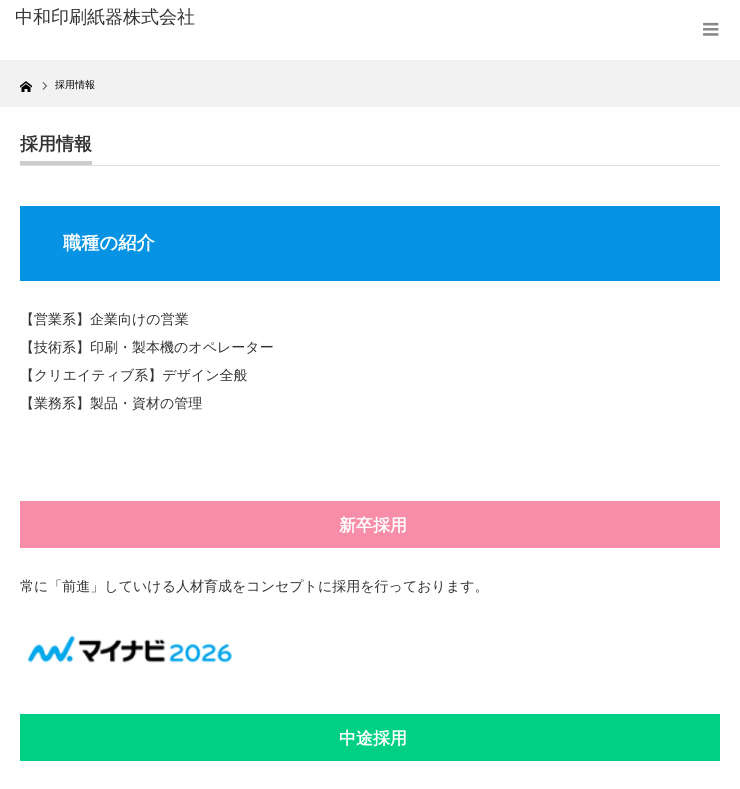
import math
import cairo

surface = cairo.ImageSurface(cairo.FORMAT_RGB24, 740, 789)
ctx = cairo.Context(surface)
options = cairo.FontOptions()
options.set_hint_metrics(cairo.HINT_METRICS_OFF)
options.set_hint_style(cairo.HINT_STYLE_NONE)
ctx.set_font_options(options)
ctx.set_miter_limit(4)


def set_color(code):
    ctx.set_source_rgb(*(v / 255 for v in bytes.fromhex(code[-6:])))


def draw_text(x, y, s, family, size, color, bold=False, italic=False):
    ctx.select_font_face(family, cairo.FONT_SLANT_ITALIC if italic else cairo.FONT_SLANT_NORMAL, cairo.FONT_WEIGHT_BOLD if bold else cairo.FONT_WEIGHT_NORMAL)
    ctx.set_font_size(size)
    set_color(color)
    ctx.move_to(x, y)
    ctx.show_text(s)


def fill_rect(x, y, w, h, color):
    set_color(color)
    ctx.rectangle(x, y, w, h)
    ctx.fill()


def draw_image(path, x, y, w, h):
    ctx.save()
    ctx.set_source_surface(cairo.ImageSurface.create_from_png(path), x, y)
    ctx.rectangle(x, y, w, h)
    ctx.fill()
    ctx.restore()


set_color("#ffffff")
ctx.paint()
draw_text(15, 23, "中和印刷紙器株式会社", "WenQuanYi Zen Hei Medium", 18, "#333333")
draw_image("assets/img1.png", 703, 22, 16, 14)
fill_rect(0, 60, 740, 47, "#f2f2f2")
draw_image("assets/img2.png", 20, 81, 12, 11)
draw_image("assets/img3.png", 42, 82, 5, 8)
draw_text(55, 88, "採用情報", "WenQuanYi Zen Hei Medium", 10, "#000000")
fill_rect(20, 165, 700, 1, "#dddddd")
fill_rect(20, 161, 72, 4, "#cccccc")
draw_text(20, 150, "採用情報", "WenQuanYi Zen Hei", 18, "#333333", bold=True)
fill_rect(20, 206, 700, 75, "#0693e3")
draw_text(63, 249, "職種の紹介", "WenQuanYi Zen Hei", 18.25, "#ffffff", bold=True)
draw_text(20, 324, "【営業系】企業向けの営業", "WenQuanYi Zen Hei Medium", 14, "#333333")
draw_text(20, 352, "【技術系】印刷・製本機のオペレーター", "WenQuanYi Zen Hei Medium", 14, "#333333")
draw_text(20, 380, "【クリエイティブ系】デザイン全般", "WenQuanYi Zen Hei Medium", 14, "#333333")
draw_text(20, 408, "【業務系】製品・資材の管理", "WenQuanYi Zen Hei Medium", 14, "#333333")
fill_rect(20, 501, 700, 47, "#f78da7")
draw_text(339, 531, "新卒採用", "WenQuanYi Zen Hei", 17, "#ffffff", bold=True)
draw_text(20, 591, "常に「前進」していける人材育成をコンセプトに採用を行っております。", "WenQuanYi Zen Hei Medium", 14, "#333333")
draw_image("assets/img4.png", 27, 635, 206, 28)
fill_rect(20, 714, 700, 47, "#00d084")
draw_text(339, 744, "中途採用", "WenQuanYi Zen Hei", 17, "#ffffff", bold=True)
surface.write_to_png("output.png")
